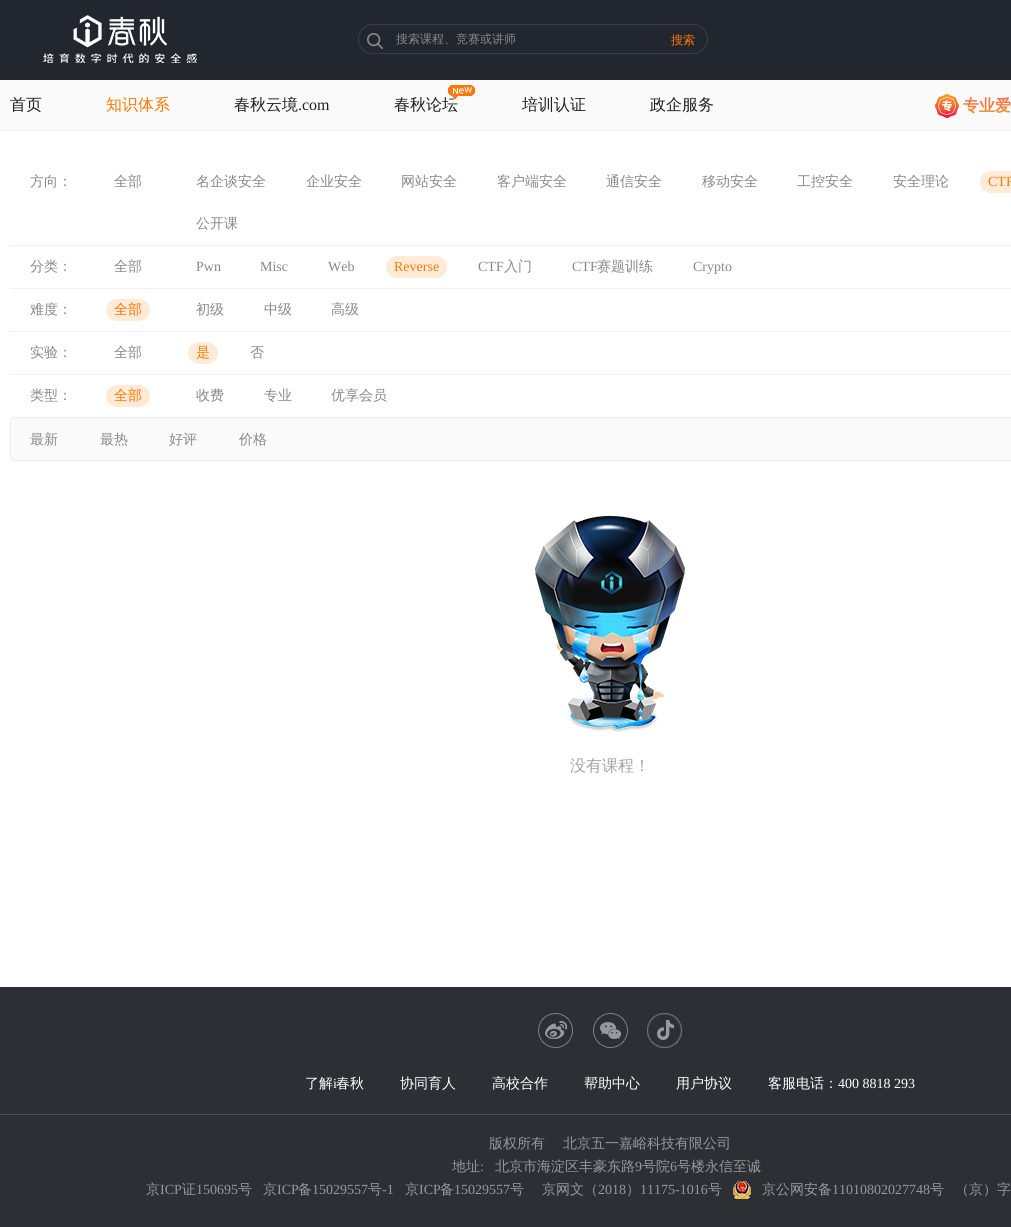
import math
import cairo

surface = cairo.ImageSurface(cairo.FORMAT_RGB24, 1011, 1227)
ctx = cairo.Context(surface)
options = cairo.FontOptions()
options.set_hint_metrics(cairo.HINT_METRICS_OFF)
options.set_hint_style(cairo.HINT_STYLE_NONE)
ctx.set_font_options(options)
ctx.set_miter_limit(4)


def set_color(code):
    ctx.set_source_rgb(*(v / 255 for v in bytes.fromhex(code[-6:])))


def draw_text(x, y, s, family, size, color, bold=False, italic=False):
    ctx.select_font_face(family, cairo.FONT_SLANT_ITALIC if italic else cairo.FONT_SLANT_NORMAL, cairo.FONT_WEIGHT_BOLD if bold else cairo.FONT_WEIGHT_NORMAL)
    ctx.set_font_size(size)
    set_color(color)
    ctx.move_to(x, y)
    ctx.show_text(s)


def fill_rect(x, y, w, h, color):
    set_color(color)
    ctx.rectangle(x, y, w, h)
    ctx.fill()


def rounded_rect(x, y, w, h, r):
    ctx.new_sub_path()
    for i, (u, v) in enumerate([(x + w - r, y + h - r), (x + r, y + h - r), (x + r, y + r), (x + w - r, y + r)]):
        ctx.arc(u, v, r, i * math.pi / 2, (i + 1) * math.pi / 2)
    ctx.close_path()


def draw_image(path, x, y, w, h):
    ctx.save()
    ctx.set_source_surface(cairo.ImageSurface.create_from_png(path), x, y)
    ctx.rectangle(x, y, w, h)
    ctx.fill()
    ctx.restore()


set_color("#ffffff")
ctx.paint()
fill_rect(0, 0, 1011, 80, "#22272f")
draw_image("assets/img1.png", 43, 15, 154, 48)
rounded_rect(358.5, 24.5, 349, 29, 14.5)
set_color("#393d48")
ctx.set_line_width(1)
ctx.stroke()
draw_image("assets/img2.png", 367, 33, 16, 16)
draw_text(396, 43, "搜索课程、竞赛或讲师", "WenQuanYi Zen Hei Medium", 12, "#888888")
draw_text(671, 44, "搜索", "WenQuanYi Zen Hei Medium", 12, "#ff7900")
fill_rect(0, 80, 1011, 50, "#fafafa")
fill_rect(0, 130, 1011, 1, "#eeeeee")
draw_text(10, 110, "首页", "WenQuanYi Zen Hei Medium", 16, "#202020")
draw_text(106, 110, "知识体系", "WenQuanYi Zen Hei Medium", 16, "#ff7900")
draw_text(234, 110, "春秋云境", "WenQuanYi Zen Hei Medium", 16, "#202020")
draw_text(298, 110, ".com", "Liberation Serif", 16, "#202020")
draw_text(394, 110, "春秋论坛", "WenQuanYi Zen Hei Medium", 16, "#202020")
draw_image("assets/img3.png", 448, 85, 27, 15)
draw_text(522, 110, "培训认证", "WenQuanYi Zen Hei Medium", 16, "#202020")
draw_text(650, 110, "政企服务", "WenQuanYi Zen Hei Medium", 16, "#202020")
draw_image("assets/img4.png", 935, 94, 24, 24)
ctx.select_font_face("WenQuanYi Zen Hei", cairo.FONT_SLANT_NORMAL, cairo.FONT_WEIGHT_BOLD)
gradient = cairo.LinearGradient(1003, 114, 1003, 97)
gradient.add_color_stop_rgba(0, 0.949, 0.557, 0.149, 1)
gradient.add_color_stop_rgba(1, 0.992, 0.392, 0.31, 1)
ctx.set_source(gradient)
ctx.move_to(963, 111)
ctx.show_text("专业爱")
fill_rect(10, 245, 1001, 1, "#f0f3f4")
draw_text(30, 186, "方向：", "WenQuanYi Zen Hei Medium", 14, "#888888")
draw_text(114, 186, "全部", "WenQuanYi Zen Hei Medium", 14, "#888888")
draw_text(196, 186, "名企谈安全", "WenQuanYi Zen Hei Medium", 14, "#888888")
draw_text(306, 186, "企业安全", "WenQuanYi Zen Hei Medium", 14, "#888888")
draw_text(401, 186, "网站安全", "WenQuanYi Zen Hei Medium", 14, "#888888")
draw_text(497, 186, "客户端安全", "WenQuanYi Zen Hei Medium", 14, "#888888")
draw_text(606, 186, "通信安全", "WenQuanYi Zen Hei Medium", 14, "#888888")
draw_text(702, 186, "移动安全", "WenQuanYi Zen Hei Medium", 14, "#888888")
draw_text(797, 186, "工控安全", "WenQuanYi Zen Hei Medium", 14, "#888888")
draw_text(893, 186, "安全理论", "WenQuanYi Zen Hei Medium", 14, "#888888")
set_color("#ffebd8")
rounded_rect(980, 171, 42, 22, 11)
ctx.fill()
draw_text(988, 186, "CTF", "Liberation Serif", 14, "#ff7900")
draw_text(196, 228, "公开课", "WenQuanYi Zen Hei Medium", 14, "#888888")
fill_rect(10, 288, 1001, 1, "#f0f3f4")
draw_text(30, 271, "分类：", "WenQuanYi Zen Hei Medium", 14, "#888888")
draw_text(114, 271, "全部", "WenQuanYi Zen Hei Medium", 14, "#888888")
draw_text(196, 271, "Pwn", "Liberation Serif", 14, "#888888")
draw_text(260, 271, "Misc", "Liberation Serif", 14, "#888888")
draw_text(328, 271, "Web", "Liberation Serif", 14, "#888888")
set_color("#ffebd8")
rounded_rect(386, 256, 61, 22, 11)
ctx.fill()
draw_text(394, 271, "Reverse", "Liberation Serif", 14, "#ff7900")
draw_text(478, 271, "CTF", "Liberation Serif", 14, "#888888")
draw_text(504, 271, "入门", "WenQuanYi Zen Hei Medium", 14, "#888888")
draw_text(572, 271, "CTF", "Liberation Serif", 14, "#888888")
draw_text(597, 271, "赛题训练", "WenQuanYi Zen Hei Medium", 14, "#888888")
draw_text(693, 271, "Crypto", "Liberation Serif", 14, "#888888")
fill_rect(10, 331, 1001, 1, "#f0f3f4")
draw_text(30, 314, "难度：", "WenQuanYi Zen Hei Medium", 14, "#888888")
set_color("#ffebd8")
rounded_rect(106, 299, 44, 22, 11)
ctx.fill()
draw_text(114, 314, "全部", "WenQuanYi Zen Hei Medium", 14, "#ff7900")
draw_text(196, 314, "初级", "WenQuanYi Zen Hei Medium", 14, "#888888")
draw_text(264, 314, "中级", "WenQuanYi Zen Hei Medium", 14, "#888888")
draw_text(331, 314, "高级", "WenQuanYi Zen Hei Medium", 14, "#888888")
fill_rect(10, 374, 1001, 1, "#f0f3f4")
draw_text(30, 357, "实验：", "WenQuanYi Zen Hei Medium", 14, "#888888")
draw_text(114, 357, "全部", "WenQuanYi Zen Hei Medium", 14, "#888888")
set_color("#ffebd8")
rounded_rect(188, 342, 30, 22, 11)
ctx.fill()
draw_text(196, 357, "是", "WenQuanYi Zen Hei Medium", 14, "#ff7900")
draw_text(250, 357, "否", "WenQuanYi Zen Hei Medium", 14, "#888888")
draw_text(30, 400, "类型：", "WenQuanYi Zen Hei Medium", 14, "#888888")
set_color("#ffebd8")
rounded_rect(106, 385, 44, 22, 11)
ctx.fill()
draw_text(114, 400, "全部", "WenQuanYi Zen Hei Medium", 14, "#ff7900")
draw_text(196, 400, "收费", "WenQuanYi Zen Hei Medium", 14, "#888888")
draw_text(264, 400, "专业", "WenQuanYi Zen Hei Medium", 14, "#888888")
draw_text(331, 400, "优享会员", "WenQuanYi Zen Hei Medium", 14, "#888888")
set_color("#fafafa")
rounded_rect(10.5, 417.5, 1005, 43, 3.5)
ctx.fill_preserve()
set_color("#ededed")
ctx.stroke()
draw_text(30, 444, "最新", "WenQuanYi Zen Hei Medium", 14, "#888888")
draw_text(100, 444, "最热", "WenQuanYi Zen Hei Medium", 14, "#888888")
draw_text(169, 444, "好评", "WenQuanYi Zen Hei Medium", 14, "#888888")
draw_text(239, 444, "价格", "WenQuanYi Zen Hei Medium", 14, "#888888")
draw_image("assets/img5.png", 535, 515, 150, 217)
draw_text(570, 771, "没有课程！", "WenQuanYi Zen Hei Medium", 16, "#a4a4a4")
fill_rect(0, 987, 1011, 240, "#2c2f34")
draw_image("assets/img6.png", 538, 1013, 35, 35)
draw_image("assets/img7.png", 593, 1013, 35, 35)
draw_image("assets/img8.png", 647, 1013, 35, 35)
fill_rect(0, 1114, 1011, 1, "#4d515a")
draw_text(305, 1088, "了解", "WenQuanYi Zen Hei Medium", 14, "#ffffff")
draw_text(333, 1088, "i", "Liberation Serif", 14, "#ffffff")
draw_text(336, 1088, "春秋", "WenQuanYi Zen Hei Medium", 14, "#ffffff")
draw_text(400, 1088, "协同育人", "WenQuanYi Zen Hei Medium", 14, "#ffffff")
draw_text(492, 1088, "高校合作", "WenQuanYi Zen Hei Medium", 14, "#ffffff")
draw_text(584, 1088, "帮助中心", "WenQuanYi Zen Hei Medium", 14, "#ffffff")
draw_text(676, 1088, "用户协议", "WenQuanYi Zen Hei Medium", 14, "#ffffff")
draw_text(768, 1088, "客服电话：", "WenQuanYi Zen Hei Medium", 14, "#ffffff")
draw_text(838, 1088, "400 8818 293", "Liberation Serif", 14, "#ffffff")
draw_text(489, 1148, "版权所有", "WenQuanYi Zen Hei Medium", 14, "#97989c")
draw_text(563, 1148, "北京五一嘉峪科技有限公司", "WenQuanYi Zen Hei Medium", 14, "#97989c")
draw_text(452, 1171, "地址", "WenQuanYi Zen Hei Medium", 14, "#97989c")
draw_text(480, 1171, ":", "Liberation Serif", 14, "#97989c")
draw_text(495, 1171, "北京市海淀区丰豪东路", "WenQuanYi Zen Hei Medium", 14, "#97989c")
draw_text(635, 1171, "9", "Liberation Serif", 14, "#97989c")
draw_text(642, 1171, "号院", "WenQuanYi Zen Hei Medium", 14, "#97989c")
draw_text(670, 1171, "6", "Liberation Serif", 14, "#97989c")
draw_text(677, 1171, "号楼永信至诚", "WenQuanYi Zen Hei Medium", 14, "#97989c")
draw_text(146, 1194, "京", "WenQuanYi Zen Hei Medium", 14, "#97989c")
draw_text(160, 1194, "ICP", "Liberation Serif", 14, "#97989c")
draw_text(182, 1194, "证", "WenQuanYi Zen Hei Medium", 14, "#97989c")
draw_text(196, 1194, "150695", "Liberation Serif", 14, "#97989c")
draw_text(238, 1194, "号", "WenQuanYi Zen Hei Medium", 14, "#97989c")
draw_text(263, 1194, "京", "WenQuanYi Zen Hei Medium", 14, "#97989c")
draw_text(277, 1194, "ICP", "Liberation Serif", 14, "#97989c")
draw_text(298, 1194, "备", "WenQuanYi Zen Hei Medium", 14, "#97989c")
draw_text(312, 1194, "15029557", "Liberation Serif", 14, "#97989c")
draw_text(368, 1194, "号", "WenQuanYi Zen Hei Medium", 14, "#97989c")
draw_text(382, 1194, "-1", "Liberation Serif", 14, "#97989c")
draw_text(405, 1194, "京", "WenQuanYi Zen Hei Medium", 14, "#97989c")
draw_text(419, 1194, "ICP", "Liberation Serif", 14, "#97989c")
draw_text(440, 1194, "备", "WenQuanYi Zen Hei Medium", 14, "#97989c")
draw_text(454, 1194, "15029557", "Liberation Serif", 14, "#97989c")
draw_text(510, 1194, "号", "WenQuanYi Zen Hei Medium", 14, "#97989c")
draw_text(542, 1194, "京网文（", "WenQuanYi Zen Hei Medium", 14, "#97989c")
draw_text(598, 1194, "2018", "Liberation Serif", 14, "#97989c")
draw_text(626, 1194, "）", "WenQuanYi Zen Hei Medium", 14, "#97989c")
draw_text(640, 1194, "11175-1016", "Liberation Serif", 14, "#97989c")
draw_text(708, 1194, "号", "WenQuanYi Zen Hei Medium", 14, "#97989c")
draw_image("assets/img9.png", 733, 1181, 18, 18)
draw_text(762, 1194, "京公网安备", "WenQuanYi Zen Hei Medium", 14, "#97989c")
draw_text(832, 1194, "11010802027748", "Liberation Serif", 14, "#97989c")
draw_text(930, 1194, "号", "WenQuanYi Zen Hei Medium", 14, "#97989c")
draw_text(955, 1194, "（京）字", "WenQuanYi Zen Hei Medium", 14, "#97989c")
surface.write_to_png("output.png")
